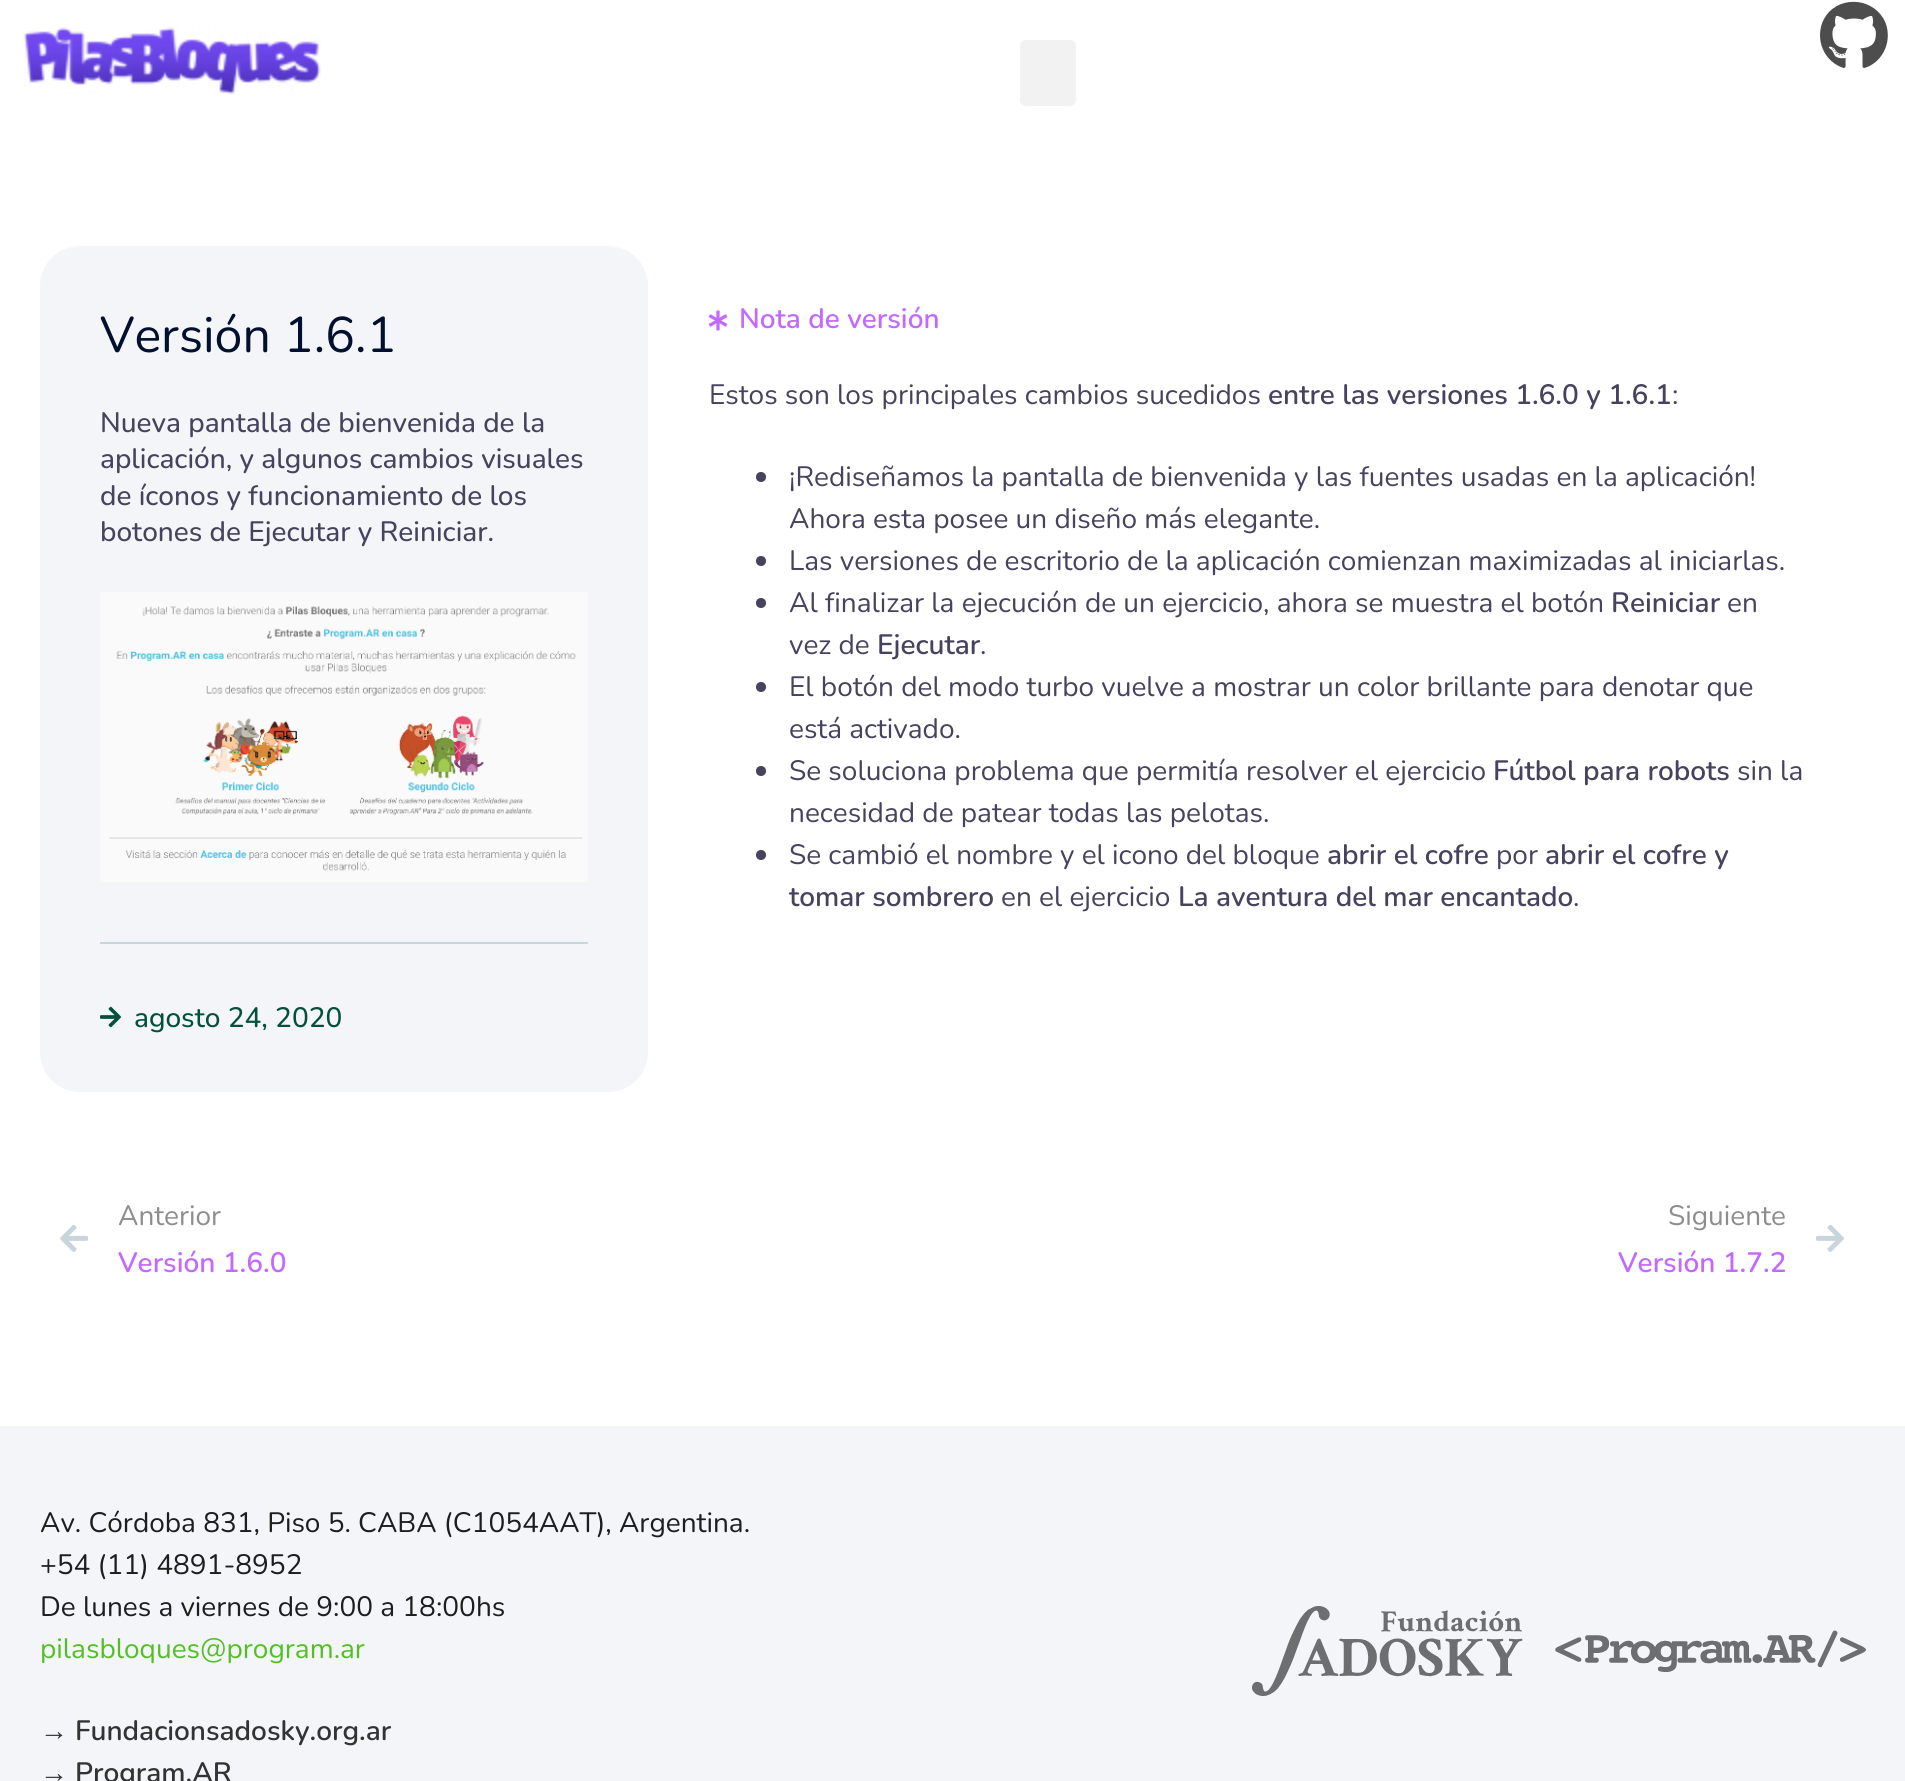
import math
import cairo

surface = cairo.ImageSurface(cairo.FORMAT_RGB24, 1905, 1781)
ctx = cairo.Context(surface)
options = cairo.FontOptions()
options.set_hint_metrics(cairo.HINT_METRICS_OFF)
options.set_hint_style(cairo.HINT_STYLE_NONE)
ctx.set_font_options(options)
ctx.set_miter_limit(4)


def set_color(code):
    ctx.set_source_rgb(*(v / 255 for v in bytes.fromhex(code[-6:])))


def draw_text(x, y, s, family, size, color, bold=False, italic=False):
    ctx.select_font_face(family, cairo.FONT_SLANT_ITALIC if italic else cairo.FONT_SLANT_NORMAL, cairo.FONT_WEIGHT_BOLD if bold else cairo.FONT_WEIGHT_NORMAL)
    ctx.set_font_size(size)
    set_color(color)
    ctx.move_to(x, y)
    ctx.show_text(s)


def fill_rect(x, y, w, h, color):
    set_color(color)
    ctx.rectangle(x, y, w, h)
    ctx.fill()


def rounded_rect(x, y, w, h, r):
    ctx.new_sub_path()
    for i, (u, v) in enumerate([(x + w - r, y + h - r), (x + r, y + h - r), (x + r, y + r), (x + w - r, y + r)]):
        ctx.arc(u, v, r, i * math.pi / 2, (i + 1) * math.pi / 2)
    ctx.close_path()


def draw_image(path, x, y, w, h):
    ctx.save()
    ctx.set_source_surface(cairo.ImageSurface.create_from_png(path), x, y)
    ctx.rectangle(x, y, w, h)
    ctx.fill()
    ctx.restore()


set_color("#ffffff")
ctx.paint()
draw_image("assets/img1.png", 23, 27, 298, 68)
set_color("#f2f2f2")
rounded_rect(1020, 40, 56, 66, 6)
ctx.fill()
draw_image("assets/img2.png", 1820, 1, 68, 67)
set_color("#f3f5f8")
rounded_rect(40, 246, 608, 846, 40)
ctx.fill()
draw_text(100, 352, "Versión 1.6.1", "Nunito", 50, "#00102e")
draw_text(100, 432, "Nueva pantalla de bienvenida de la", "Nunito Medium", 28, "#47425d")
draw_text(100, 468, "aplicación, y algunos cambios visuales", "Nunito Medium", 28, "#47425d")
draw_text(100, 505, "de íconos y funcionamiento de los", "Nunito Medium", 28, "#47425d")
draw_text(100, 541, "botones de Ejecutar y Reiniciar.", "Nunito Medium", 28, "#47425d")
draw_image("assets/img3.png", 100, 592, 488, 290)
fill_rect(100, 942, 488, 2, "#c8d5dc")
draw_image("assets/img4.png", 100, 1006, 21, 22)
draw_text(134, 1027, "agosto 24, 2020", "Nunito Medium", 28, "#04513b")
draw_image("assets/img5.png", 708, 310, 20, 21)
draw_text(739, 328, "Nota de versión", "Nunito SemiBold", 28, "#c469ff")
draw_text(709, 404, "Estos son los principales cambios sucedidos", "Nunito", 28, "#47425d")
draw_text(1268, 404, "entre las versiones 1.6.0 y 1.6.1", "Nunito SemiBold", 28, "#47425d")
draw_text(1672, 404, ":", "Nunito", 28, "#47425d")
ctx.new_path()
ctx.arc(761, 477, 5, 0, 2 * math.pi)
ctx.fill()
draw_text(789, 486, "¡Rediseñamos la pantalla de bienvenida y las fuentes usadas en la aplicación!", "Nunito", 28, "#47425d")
draw_text(789, 528, "Ahora esta posee un diseño más elegante.", "Nunito", 28, "#47425d")
ctx.new_path()
ctx.arc(761, 561, 5, 0, 2 * math.pi)
ctx.fill()
draw_text(789, 570, "Las versiones de escritorio de la aplicación comienzan maximizadas al iniciarlas.", "Nunito", 28, "#47425d")
ctx.new_path()
ctx.arc(761, 603, 5, 0, 2 * math.pi)
ctx.fill()
draw_text(789, 612, "Al finalizar la ejecución de un ejercicio, ahora se muestra el botón", "Nunito", 28, "#47425d")
draw_text(1611, 612, "Reiniciar", "Nunito SemiBold", 28, "#47425d")
draw_text(1727, 612, "en", "Nunito", 28, "#47425d")
draw_text(789, 654, "vez de", "Nunito", 28, "#47425d")
draw_text(877, 654, "Ejecutar", "Nunito SemiBold", 28, "#47425d")
draw_text(980, 654, ".", "Nunito", 28, "#47425d")
ctx.new_path()
ctx.arc(761, 687, 5, 0, 2 * math.pi)
ctx.fill()
draw_text(789, 696, "El botón del modo turbo vuelve a mostrar un color brillante para denotar que", "Nunito", 28, "#47425d")
draw_text(789, 738, "está activado.", "Nunito", 28, "#47425d")
ctx.new_path()
ctx.arc(761, 771, 5, 0, 2 * math.pi)
ctx.fill()
draw_text(789, 780, "Se soluciona problema que permitía resolver el ejercicio", "Nunito", 28, "#47425d")
draw_text(1493, 780, "Fútbol para robots", "Nunito SemiBold", 28, "#47425d")
draw_text(1737, 780, "sin la", "Nunito", 28, "#47425d")
draw_text(789, 822, "necesidad de patear todas las pelotas.", "Nunito", 28, "#47425d")
ctx.new_path()
ctx.arc(761, 855, 5, 0, 2 * math.pi)
ctx.fill()
draw_text(789, 864, "Se cambió el nombre y el icono del bloque", "Nunito", 28, "#47425d")
draw_text(1327, 864, "abrir el cofre", "Nunito SemiBold", 28, "#47425d")
draw_text(1496, 864, "por", "Nunito", 28, "#47425d")
draw_text(1545, 864, "abrir el cofre y", "Nunito SemiBold", 28, "#47425d")
draw_text(789, 906, "tomar sombrero", "Nunito SemiBold", 28, "#47425d")
draw_text(1001, 906, "en el ejercicio", "Nunito", 28, "#47425d")
draw_text(1178, 906, "La aventura del mar encantado", "Nunito SemiBold", 28, "#47425d")
draw_text(1573, 906, ".", "Nunito", 28, "#47425d")
draw_image("assets/img6.png", 60, 1224, 28, 28)
draw_text(118, 1225, "Anterior", "Nunito", 28, "#8d8d8d")
draw_text(118, 1272, "Versión 1.6.0", "Nunito SemiBold", 28, "#c469ff")
draw_text(1668, 1225, "Siguiente", "Nunito", 28, "#8d8d8d")
draw_text(1618, 1272, "Versión 1.7.2", "Nunito SemiBold", 28, "#c469ff")
draw_image("assets/img7.png", 1816, 1224, 28, 28)
fill_rect(0, 1426, 1905, 355, "#f3f5f8")
draw_text(40, 1532, "Av. Córdoba 831, Piso 5. CABA (C1054AAT), Argentina.", "Nunito", 28, "#1e1e1e")
draw_text(40, 1574, "+54 (11) 4891-8952", "Nunito", 28, "#1e1e1e")
draw_text(40, 1616, "De lunes a viernes de 9:00 a 18:00hs", "Nunito", 28, "#1e1e1e")
draw_text(40, 1658, "pilasbloques@program.ar", "Nunito", 28, "#53bf24")
draw_text(40, 1740, "→", "Liberation Sans", 28, "#333333", bold=True)
draw_text(75, 1740, "Fundacionsadosky.org.ar", "Nunito SemiBold", 28, "#333333")
draw_text(40, 1782, "→", "Liberation Sans", 28, "#333333", bold=True)
draw_text(75, 1782, "Program.AR", "Nunito SemiBold", 28, "#333333")
draw_image("assets/img8.png", 1252, 1606, 614, 90)
surface.write_to_png("output.png")
